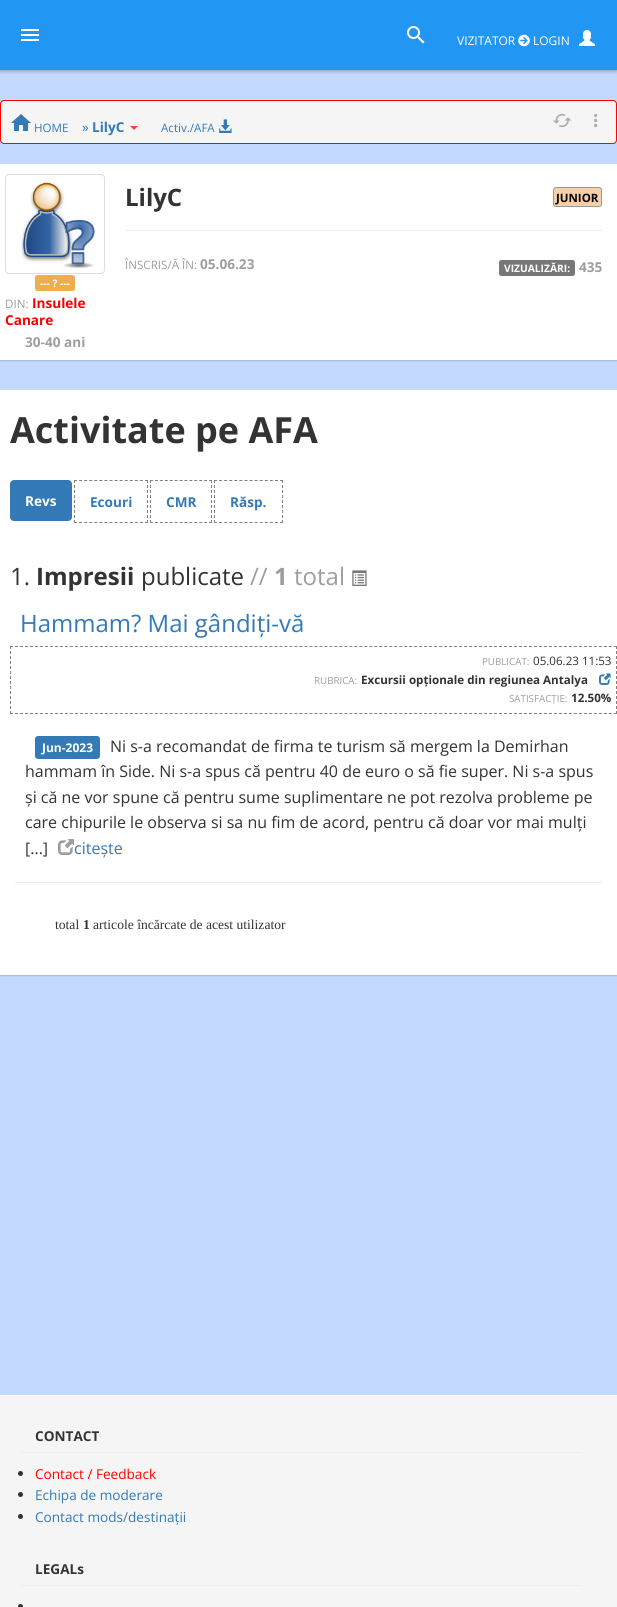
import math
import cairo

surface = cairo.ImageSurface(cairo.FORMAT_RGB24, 617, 1607)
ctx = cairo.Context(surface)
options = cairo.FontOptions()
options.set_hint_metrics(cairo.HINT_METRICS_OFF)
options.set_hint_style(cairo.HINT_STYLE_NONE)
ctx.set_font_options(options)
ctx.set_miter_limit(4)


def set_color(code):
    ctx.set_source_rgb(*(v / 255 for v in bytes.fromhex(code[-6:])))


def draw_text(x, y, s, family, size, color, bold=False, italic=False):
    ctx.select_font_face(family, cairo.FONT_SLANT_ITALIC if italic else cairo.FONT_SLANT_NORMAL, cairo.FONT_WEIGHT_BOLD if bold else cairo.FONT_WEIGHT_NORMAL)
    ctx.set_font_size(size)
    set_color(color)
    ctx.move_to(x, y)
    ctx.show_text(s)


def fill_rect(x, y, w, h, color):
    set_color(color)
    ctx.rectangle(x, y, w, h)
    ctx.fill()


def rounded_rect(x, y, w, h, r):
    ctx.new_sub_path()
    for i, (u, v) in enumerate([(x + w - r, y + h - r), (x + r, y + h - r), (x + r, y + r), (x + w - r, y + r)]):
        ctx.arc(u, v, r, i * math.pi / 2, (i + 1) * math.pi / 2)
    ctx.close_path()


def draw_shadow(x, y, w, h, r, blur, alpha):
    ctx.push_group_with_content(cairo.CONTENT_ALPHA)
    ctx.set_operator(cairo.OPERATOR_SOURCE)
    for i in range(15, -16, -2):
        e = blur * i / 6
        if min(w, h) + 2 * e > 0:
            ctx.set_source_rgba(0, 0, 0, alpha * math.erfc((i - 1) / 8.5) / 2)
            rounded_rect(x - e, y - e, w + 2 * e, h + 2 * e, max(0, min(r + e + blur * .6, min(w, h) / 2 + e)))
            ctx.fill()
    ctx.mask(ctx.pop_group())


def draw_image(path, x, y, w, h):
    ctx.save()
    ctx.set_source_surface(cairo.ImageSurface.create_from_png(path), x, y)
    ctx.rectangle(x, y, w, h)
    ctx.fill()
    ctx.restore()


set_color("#c3d9ff")
ctx.paint()
set_color("#000000")
draw_shadow(0, 1, 617, 70, 0, 2, 0.3)
fill_rect(0, 0, 617, 70, "#2196f3")
fill_rect(21, 29, 18, 2, "#ffffff")
fill_rect(21, 34, 18, 2, "#ffffff")
fill_rect(21, 39, 18, 2, "#ffffff")
draw_image("assets/img1.png", 407, 26, 18, 18)
draw_text(457, 45, "VIZITATOR", "Open Sans", 12, "#ffffff")
draw_image("assets/img2.png", 518, 34, 12, 13)
draw_text(533, 45, "LOGIN", "Open Sans", 12, "#ffffff")
draw_image("assets/img3.png", 579, 30, 16, 16)
set_color("#f5f5f5")
rounded_rect(0.5, 100.5, 616, 43, 3.5)
ctx.fill_preserve()
set_color("#ff0000")
ctx.set_line_width(1)
ctx.stroke()
draw_image("assets/img4.png", 11, 114, 20, 17)
draw_text(34, 132, "HOME", "Open Sans", 11.6, "#337ab7")
draw_text(82, 132, "»", "Open Sans", 13.6, "#337ab7")
draw_text(92, 132, "LilyC", "Open Sans", 13.6, "#337ab7", bold=True)
set_color("#f44336")
ctx.new_path()
ctx.move_to(130, 126)
ctx.line_to(138, 126)
ctx.line_to(134, 130)
ctx.close_path()
ctx.fill()
draw_text(161, 132, "Activ./AFA", "Open Sans", 11.6, "#337ab7")
draw_image("assets/img5.png", 219, 119, 13, 14)
draw_image("assets/img6.png", 553, 113, 19, 15)
draw_image("assets/img7.png", 594, 113, 4, 15)
set_color("#000000")
draw_shadow(0, 165, 617, 196, 0, 0.5, 0.15)
fill_rect(0, 164, 617, 196, "#ffffff")
draw_text(125, 206, "LilyC", "Open Sans", 24, "#333333", bold=True)
set_color("#f5d0a9")
rounded_rect(553.5, 187.5, 48, 19, 2.5)
ctx.fill_preserve()
set_color("#999999")
ctx.stroke()
draw_text(556, 202, "JUNIOR", "Open Sans", 11.5, "#000000", bold=True)
fill_rect(125, 230, 477, 1, "#eeeeee")
draw_text(125, 269, "ÎNSCRIS/Ă ÎN:", "Open Sans", 11.6, "#9e9e9e")
draw_text(200, 269, "05.06.23", "Open Sans", 13.6, "#9e9e9e", bold=True)
set_color("#777777")
rounded_rect(499, 260, 76, 16, 2.5)
ctx.fill()
draw_text(504, 272, "VIZUALIZĂRI:", "Open Sans", 10.25, "#ffffff", bold=True)
draw_text(579, 272, "435", "Open Sans", 13.6, "#9e9e9e", bold=True)
rounded_rect(5.5, 174.5, 99, 99, 3.5)
set_color("#dddddd")
ctx.stroke()
draw_image("assets/img8.png", 21, 182, 74, 86)
set_color("#f0ad4e")
rounded_rect(35, 275, 40, 16, 2.5)
ctx.fill()
draw_text(40, 287, "--- ? ---", "Open Sans", 10.25, "#ffffff", bold=True)
draw_text(5, 308, "DIN:", "Open Sans", 11.6, "#9e9e9e")
draw_text(32, 308, "Insulele", "Open Sans", 13.6, "#ff0000", bold=True)
draw_text(5, 325, "Canare", "Open Sans", 13.6, "#ff0000", bold=True)
draw_text(25, 347, "30-40 ani", "Open Sans", 13.6, "#9e9e9e", bold=True)
set_color("#000000")
draw_shadow(0, 391, 617, 585, 0, 0.5, 0.15)
fill_rect(0, 390, 617, 585, "#ffffff")
draw_text(10, 443, "Activitate pe AFA", "Open Sans", 36, "#333333", bold=True)
set_color("#337ab7")
rounded_rect(10, 480, 62, 41, 4)
ctx.fill()
draw_text(25, 506, "Revs", "Open Sans", 13.6, "#ffffff", bold=True)
ctx.new_path()
ctx.move_to(74, 480.5)
ctx.line_to(148, 480.5)
set_color("#808080")
ctx.set_dash([3, 2.07])
ctx.stroke()
ctx.new_path()
ctx.move_to(147.5, 480)
ctx.line_to(147.5, 523)
ctx.set_dash([3, 2])
ctx.stroke()
ctx.new_path()
ctx.move_to(74, 522.5)
ctx.line_to(148, 522.5)
ctx.set_dash([3, 2.07])
ctx.stroke()
ctx.new_path()
ctx.move_to(74.5, 480)
ctx.line_to(74.5, 523)
ctx.set_dash([3, 2])
ctx.stroke()
draw_text(90, 507, "Ecouri", "Open Sans", 13.6, "#337ab7", bold=True)
ctx.new_path()
ctx.move_to(150, 480.5)
ctx.line_to(212, 480.5)
set_color("#808080")
ctx.set_dash([3, 1.92])
ctx.stroke()
ctx.new_path()
ctx.move_to(211.5, 480)
ctx.line_to(211.5, 523)
ctx.set_dash([3, 2])
ctx.stroke()
ctx.new_path()
ctx.move_to(150, 522.5)
ctx.line_to(212, 522.5)
ctx.set_dash([3, 1.92])
ctx.stroke()
ctx.new_path()
ctx.move_to(150.5, 480)
ctx.line_to(150.5, 523)
ctx.set_dash([3, 2])
ctx.stroke()
draw_text(166, 507, "CMR", "Open Sans", 13.6, "#337ab7", bold=True)
ctx.new_path()
ctx.move_to(214, 480.5)
ctx.line_to(283, 480.5)
set_color("#808080")
ctx.set_dash([3, 2.08])
ctx.stroke()
ctx.new_path()
ctx.move_to(282.5, 480)
ctx.line_to(282.5, 523)
ctx.set_dash([3, 2])
ctx.stroke()
ctx.new_path()
ctx.move_to(214, 522.5)
ctx.line_to(283, 522.5)
ctx.set_dash([3, 2.08])
ctx.stroke()
ctx.new_path()
ctx.move_to(214.5, 480)
ctx.line_to(214.5, 523)
ctx.set_dash([3, 2])
ctx.stroke()
draw_text(230, 507, "Răsp.", "Open Sans", 13.6, "#337ab7", bold=True)
draw_text(10, 585, "1.", "Open Sans", 24, "#333333")
draw_text(36, 585, "Impresii", "Open Sans", 24, "#333333", bold=True)
draw_text(141, 585, "publicate", "Open Sans", 24, "#333333")
draw_text(250, 585, "//", "Open Sans", 24, "#9e9e9e")
draw_text(274, 585, "1", "Open Sans", 24, "#9e9e9e", bold=True)
draw_text(294, 585, "total", "Open Sans", 24, "#9e9e9e")
draw_image("assets/img9.png", 352, 570, 15, 16)
draw_text(20, 632, "Hammam? Mai gândiți-vă", "Open Sans", 24, "#337ab7")
ctx.new_path()
ctx.move_to(10, 646.5)
ctx.line_to(617, 646.5)
set_color("#808080")
ctx.set_dash([3, 1.99])
ctx.stroke()
ctx.new_path()
ctx.move_to(616.5, 646)
ctx.line_to(616.5, 714)
ctx.set_dash([3, 2])
ctx.stroke()
ctx.new_path()
ctx.move_to(10, 713.5)
ctx.line_to(617, 713.5)
ctx.set_dash([3, 1.99])
ctx.stroke()
ctx.new_path()
ctx.move_to(10.5, 646)
ctx.line_to(10.5, 714)
ctx.set_dash([3, 2])
ctx.stroke()
draw_text(482, 665, "PUBLICAT:", "Open Sans", 9.75, "#9e9e9e")
draw_text(533, 665, "05.06.23 11:53", "Open Sans", 11.6, "#333333")
draw_text(314, 684, "RUBRICA:", "Open Sans", 9.75, "#9e9e9e")
draw_text(361, 684, "Excursii opționale din regiunea Antalya", "Open Sans", 11.6, "#333333", bold=True)
draw_image("assets/img10.png", 599, 673, 12, 12)
draw_text(509, 702, "SATISFACȚIE:", "Open Sans", 9.75, "#9e9e9e")
draw_text(571, 702, "12.50%", "Open Sans", 11.6, "#333333", bold=True)
set_color("#337ab7")
rounded_rect(35, 736, 65, 23, 3)
ctx.fill()
draw_text(42, 752, "Jun-2023", "Open Sans", 12, "#ffffff", bold=True)
draw_text(110, 752, "Ni s-a recomandat de firma te turism să mergem la Demirhan", "Open Sans", 16, "#333333")
draw_text(25, 777, "hammam în Side. Ni s-a spus că pentru 40 de euro o să fie super. Ni s-a spus", "Open Sans", 16, "#333333")
draw_text(25, 803, "și că ne vor spune că pentru sume suplimentare ne pot rezolva probleme pe", "Open Sans", 16, "#333333")
draw_text(25, 828, "care chipurile le observa si sa nu fim de acord, pentru că doar vor mai mulți", "Open Sans", 16, "#333333")
draw_text(25, 854, "[...]", "Open Sans", 16, "#333333")
draw_image("assets/img11.png", 58, 839, 16, 16)
draw_text(74, 854, "citește", "Open Sans", 16, "#337ab7")
fill_rect(15, 882, 587, 1, "#eeeeee")
draw_text(55, 929, "total", "Liberation Serif", 13.6, "#333333")
draw_text(83, 929, "1", "Liberation Serif", 13.6, "#333333", bold=True)
draw_text(93, 929, "articole încărcate de acest utilizator", "Liberation Serif", 13.6, "#333333")
fill_rect(0, 1395, 617, 212, "#f5f5f5")
draw_text(35, 1441, "CONTACT", "Open Sans", 13.6, "#333333", bold=True)
fill_rect(20, 1452, 562, 1, "#eeeeee")
set_color("#333333")
ctx.new_path()
ctx.arc(20.5, 1473.5, 2.5, 0, 2 * math.pi)
ctx.fill()
draw_text(35, 1479, "Contact / Feedback", "Open Sans", 13.6, "#ff0000")
set_color("#333333")
ctx.new_path()
ctx.arc(20.5, 1494.5, 2.5, 0, 2 * math.pi)
ctx.fill()
draw_text(35, 1500, "Echipa de moderare", "Open Sans", 13.6, "#337ab7")
set_color("#333333")
ctx.new_path()
ctx.arc(20.5, 1516.5, 2.5, 0, 2 * math.pi)
ctx.fill()
draw_text(35, 1522, "Contact mods/destinații", "Open Sans", 13.6, "#337ab7")
draw_text(35, 1574, "LEGALs", "Open Sans", 13.6, "#333333", bold=True)
fill_rect(20, 1585, 562, 1, "#eeeeee")
set_color("#333333")
ctx.new_path()
ctx.arc(20.5, 1606.5, 2.5, 0, 2 * math.pi)
ctx.fill()
surface.write_to_png("output.png")
